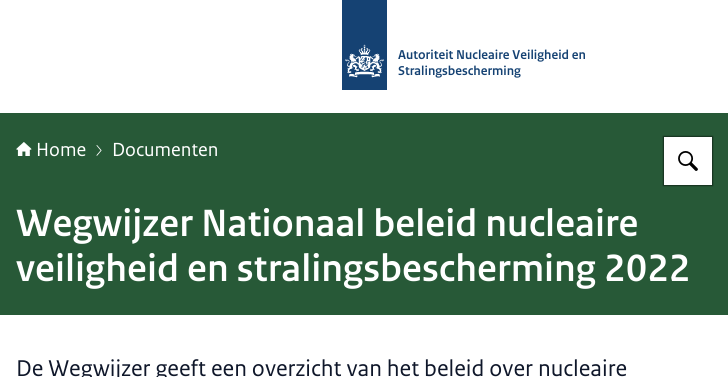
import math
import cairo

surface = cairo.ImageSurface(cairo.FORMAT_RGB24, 728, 377)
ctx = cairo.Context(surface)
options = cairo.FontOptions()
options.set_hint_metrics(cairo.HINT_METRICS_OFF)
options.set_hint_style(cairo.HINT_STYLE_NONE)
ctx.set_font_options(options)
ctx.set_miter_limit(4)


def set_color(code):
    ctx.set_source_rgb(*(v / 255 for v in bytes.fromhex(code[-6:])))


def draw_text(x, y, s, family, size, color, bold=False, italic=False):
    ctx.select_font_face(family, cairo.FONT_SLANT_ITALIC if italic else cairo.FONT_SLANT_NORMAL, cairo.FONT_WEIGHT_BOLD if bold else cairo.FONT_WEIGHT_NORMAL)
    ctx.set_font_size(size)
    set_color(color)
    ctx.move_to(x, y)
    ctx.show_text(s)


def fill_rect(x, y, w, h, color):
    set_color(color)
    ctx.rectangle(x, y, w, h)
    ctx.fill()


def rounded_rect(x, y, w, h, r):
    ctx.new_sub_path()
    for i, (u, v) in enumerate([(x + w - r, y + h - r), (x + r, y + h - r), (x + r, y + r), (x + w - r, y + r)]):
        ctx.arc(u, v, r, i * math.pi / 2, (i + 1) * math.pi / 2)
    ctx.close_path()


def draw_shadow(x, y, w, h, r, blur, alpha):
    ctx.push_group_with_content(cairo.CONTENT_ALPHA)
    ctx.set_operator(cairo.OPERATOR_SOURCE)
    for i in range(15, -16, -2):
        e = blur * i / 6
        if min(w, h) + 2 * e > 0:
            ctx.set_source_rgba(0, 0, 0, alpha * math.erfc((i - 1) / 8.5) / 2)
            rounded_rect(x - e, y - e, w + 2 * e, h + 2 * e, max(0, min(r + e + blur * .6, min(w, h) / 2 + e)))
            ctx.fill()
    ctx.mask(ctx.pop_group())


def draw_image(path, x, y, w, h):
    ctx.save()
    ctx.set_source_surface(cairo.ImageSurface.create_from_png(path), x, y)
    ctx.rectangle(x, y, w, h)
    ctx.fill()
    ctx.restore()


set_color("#ffffff")
ctx.paint()
draw_image("assets/img1.png", 342, 0, 45, 90)
draw_text(398, 59, "Autoriteit Nucleaire Veiligheid en", "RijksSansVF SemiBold", 13.5, "#154273")
draw_text(398, 75, "Stralingsbescherming", "RijksSansVF SemiBold", 13.5, "#154273")
fill_rect(0, 113, 728, 202, "#275937")
draw_image("assets/img2.png", 16, 142, 16, 14)
draw_text(36, 156, "Home", "RijksSansVF", 20, "#ffffff")
draw_image("assets/img3.png", 96, 145, 6, 11)
draw_text(112, 156, "Documenten", "RijksSansVF", 20, "#ffffff")
set_color("#000000")
draw_shadow(663, 136, 50, 50, 0, 0.5, 0.44)
fill_rect(664, 137, 48, 48, "#ffffff")
draw_image("assets/img4.png", 678, 151, 20, 20)
draw_text(16, 236, "Wegwijzer Nationaal beleid nucleaire", "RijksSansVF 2 SemiBold", 40, "#ffffff")
draw_text(16, 281, "veiligheid en stralingsbescherming 2022", "RijksSansVF 2 SemiBold", 40, "#ffffff")
draw_text(16, 376, "De Wegwijzer geeft een overzicht van het beleid over nucleaire", "RijksSansVF", 24, "#0f172a")
surface.write_to_png("output.png")
